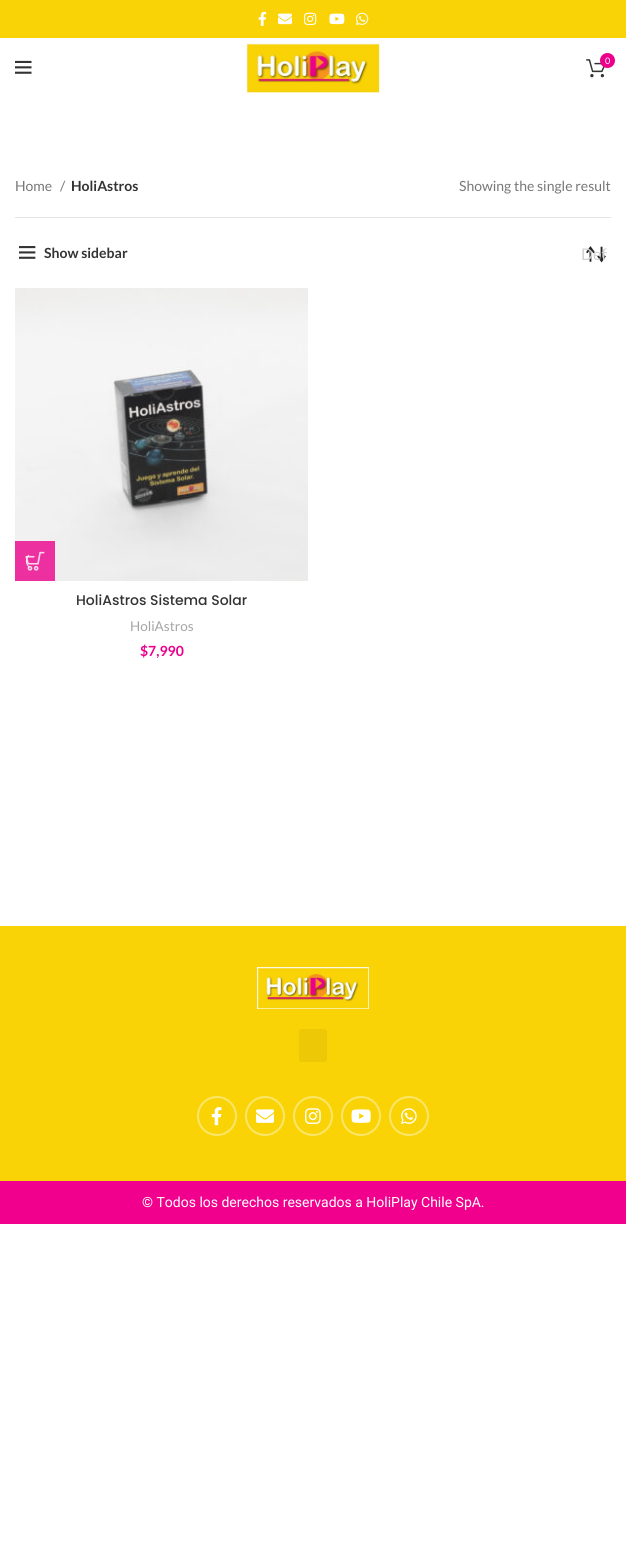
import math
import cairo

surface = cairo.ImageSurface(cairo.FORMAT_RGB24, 626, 1551)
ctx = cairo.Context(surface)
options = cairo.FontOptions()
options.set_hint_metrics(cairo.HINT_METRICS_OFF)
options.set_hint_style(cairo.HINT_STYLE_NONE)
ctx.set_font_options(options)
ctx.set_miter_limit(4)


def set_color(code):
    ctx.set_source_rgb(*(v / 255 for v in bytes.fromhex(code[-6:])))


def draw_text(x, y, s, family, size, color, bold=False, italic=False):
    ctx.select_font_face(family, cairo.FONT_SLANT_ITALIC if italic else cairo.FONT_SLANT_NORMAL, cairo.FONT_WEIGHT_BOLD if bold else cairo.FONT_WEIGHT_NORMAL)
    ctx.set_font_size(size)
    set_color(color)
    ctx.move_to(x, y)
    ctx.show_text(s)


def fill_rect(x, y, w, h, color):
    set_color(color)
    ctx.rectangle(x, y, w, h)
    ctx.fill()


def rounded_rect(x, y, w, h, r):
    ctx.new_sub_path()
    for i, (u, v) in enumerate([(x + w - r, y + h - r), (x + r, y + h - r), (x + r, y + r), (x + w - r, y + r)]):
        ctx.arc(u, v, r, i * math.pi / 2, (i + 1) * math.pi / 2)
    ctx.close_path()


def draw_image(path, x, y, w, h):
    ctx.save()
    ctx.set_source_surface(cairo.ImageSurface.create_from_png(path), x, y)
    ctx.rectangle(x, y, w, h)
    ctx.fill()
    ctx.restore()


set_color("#ffffff")
ctx.paint()
fill_rect(0, 0, 626, 38, "#f9d306")
draw_image("assets/img1.png", 258, 11, 9, 15)
draw_image("assets/img2.png", 278, 13, 14, 12)
draw_image("assets/img3.png", 304, 12, 13, 13)
draw_image("assets/img4.png", 329, 13, 16, 12)
draw_image("assets/img5.png", 356, 12, 13, 13)
draw_image("assets/img6.png", 15, 60, 17, 14)
draw_image("assets/img7.png", 246, 43, 134, 50)
draw_image("assets/img8.png", 586, 59, 19, 19)
set_color("#ec008b")
ctx.arc(607.5, 60.5, 7.5, 0, 2 * math.pi)
ctx.fill()
draw_text(605, 64, "0", "Lato", 9, "#ffffff")
fill_rect(15, 217, 596, 1, "#e4e4e4")
draw_text(15, 191, "Home", "Lato", 14, "#777777")
draw_text(60, 191, "/", "Lato", 14, "#777777")
draw_text(71, 191, "HoliAstros", "Lato", 14, "#333333", bold=True)
draw_text(459, 191, "Showing the single result", "Lato", 14, "#777777")
draw_image("assets/img9.png", 19, 246, 17, 13)
draw_text(44, 258, "Show sidebar", "Lato", 14, "#333333", bold=True)
draw_image("assets/img10.png", 586, 246, 20, 17)
draw_text(581, 260, "Def", "Lato", 16, "#d2d2d2")
draw_image("assets/img11.png", 15, 288, 293, 293)
ctx.set_source_rgba(0.925, 0, 0.545, 0.8)
ctx.rectangle(15, 541, 40, 40)
ctx.fill()
draw_image("assets/img12.png", 25, 551, 20, 20)
ctx.new_path()
ctx.move_to(29, 567)
ctx.curve_to(25.5, 563.5, 25.5, 558.5, 29, 555)
set_color("#f0f0f0")
ctx.set_line_width(1)
ctx.stroke()
draw_text(76, 605, "HoliAstros Sistema Solar", "Poppins Medium", 14, "#333333")
draw_text(130, 631, "HoliAstros", "Lato", 13.5, "#a5a5a5")
draw_text(140, 656, "$7,990", "Lato", 14, "#ec008b", bold=True)
fill_rect(0, 926, 626, 255, "#f9d306")
draw_image("assets/img13.png", 257, 967, 112, 42)
set_color("#edc806")
rounded_rect(299, 1029, 28, 33, 3)
ctx.fill()
ctx.arc(217, 1116, 19, 0, 2 * math.pi)
set_color("#fbe56a")
ctx.set_line_width(2)
ctx.stroke()
draw_image("assets/img14.png", 211, 1107, 11, 19)
ctx.arc(265, 1116, 19, 0, 2 * math.pi)
ctx.stroke()
draw_image("assets/img15.png", 256, 1109, 18, 14)
ctx.arc(313, 1116, 19, 0, 2 * math.pi)
ctx.stroke()
draw_image("assets/img16.png", 305, 1108, 16, 16)
ctx.arc(361, 1116, 19, 0, 2 * math.pi)
ctx.stroke()
draw_image("assets/img17.png", 351, 1109, 20, 14)
ctx.arc(409, 1116, 19, 0, 2 * math.pi)
ctx.stroke()
draw_image("assets/img18.png", 401, 1108, 16, 16)
fill_rect(0, 1181, 626, 43, "#f0008c")
draw_text(142, 1207, "© Todos los derechos reservados a HoliPlay Chile SpA.", "Roboto", 14, "#ffffff")
surface.write_to_png("output.png")
